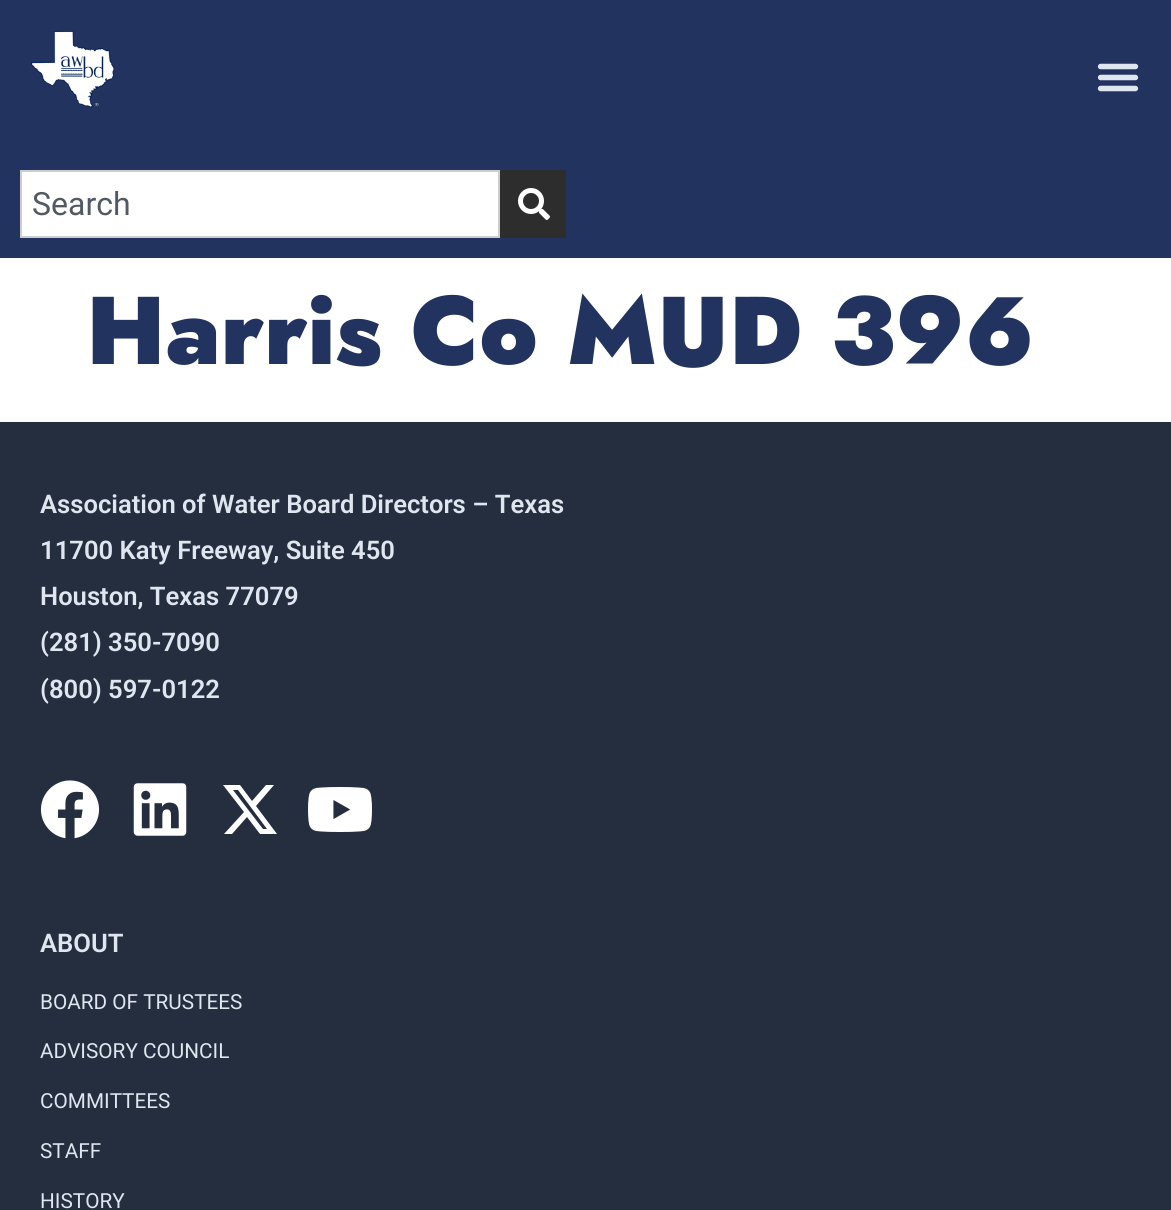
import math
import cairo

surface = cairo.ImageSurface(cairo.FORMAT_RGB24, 1171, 1210)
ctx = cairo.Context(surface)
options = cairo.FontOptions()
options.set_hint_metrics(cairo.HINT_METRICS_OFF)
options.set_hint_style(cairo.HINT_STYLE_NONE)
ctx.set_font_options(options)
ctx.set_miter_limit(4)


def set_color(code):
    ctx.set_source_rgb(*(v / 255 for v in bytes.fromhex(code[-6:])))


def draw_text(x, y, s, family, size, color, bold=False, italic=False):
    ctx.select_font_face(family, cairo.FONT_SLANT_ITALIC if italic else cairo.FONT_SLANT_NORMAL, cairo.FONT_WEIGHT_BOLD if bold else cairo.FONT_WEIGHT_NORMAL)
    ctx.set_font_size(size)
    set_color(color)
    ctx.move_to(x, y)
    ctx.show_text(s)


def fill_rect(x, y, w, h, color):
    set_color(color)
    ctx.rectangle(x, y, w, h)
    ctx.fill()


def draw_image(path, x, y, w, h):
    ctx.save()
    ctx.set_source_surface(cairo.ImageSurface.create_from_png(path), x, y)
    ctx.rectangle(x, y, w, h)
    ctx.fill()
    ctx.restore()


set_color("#ffffff")
ctx.paint()
fill_rect(0, 0, 1171, 258, "#223360")
draw_image("assets/img1.png", 31, 31, 84, 77)
draw_image("assets/img2.png", 1097, 63, 42, 29)
set_color("#ffffff")
ctx.rectangle(21, 171, 478, 66)
ctx.fill_preserve()
set_color("#cdcdcd")
ctx.stroke()
draw_text(32, 215, "Search", "Roboto", 32, "#515962")
fill_rect(500, 170, 66, 68, "#2d2d2d")
draw_image("assets/img3.png", 518, 188, 32, 32)
draw_text(86, 364, "Harris Co MUD 396", "Jost Black", 96, "#223360")
fill_rect(0, 422, 1171, 788, "#242e3f")
draw_text(40, 513, "Association of Water Board Directors – Texas", "Roboto SemiBold", 25.6, "#e0e6ef")
draw_text(40, 559, "11700 Katy Freeway, Suite 450", "Roboto SemiBold", 25.6, "#e0e6ef")
draw_text(40, 605, "Houston, Texas 77079", "Roboto SemiBold", 25.6, "#e0e6ef")
draw_text(40, 651, "(281) 350-7090", "Roboto SemiBold", 25.6, "#e0e6ef")
draw_text(40, 698, "(800) 597-0122", "Roboto SemiBold", 25.6, "#e0e6ef")
draw_image("assets/img4.png", 40, 780, 60, 59)
draw_image("assets/img5.png", 133, 783, 54, 53)
set_color("#ffffff")
ctx.new_path()
ctx.move_to(266, 785)
ctx.line_to(274, 785)
ctx.line_to(256, 806)
ctx.line_to(277, 834)
ctx.line_to(260, 834)
ctx.line_to(247, 817)
ctx.line_to(232, 834)
ctx.line_to(224, 834)
ctx.line_to(244, 812)
ctx.line_to(223, 785)
ctx.line_to(240, 785)
ctx.line_to(252, 801)
ctx.close_path()
ctx.move_to(263, 829)
ctx.line_to(267, 829)
ctx.line_to(238, 790)
ctx.line_to(233, 790)
ctx.close_path()
ctx.fill()
draw_image("assets/img6.png", 308, 787, 64, 45)
draw_text(40, 952, "ABOUT", "Roboto SemiBold", 25.6, "#e0e6ef")
draw_text(40, 1009, "BOARD OF TRUSTEES", "Roboto", 20.75, "#e0e6ef")
draw_text(40, 1058, "ADVISORY COUNCIL", "Roboto", 20.75, "#e0e6ef")
draw_text(40, 1108, "COMMITTEES", "Roboto", 20.75, "#e0e6ef")
draw_text(40, 1158, "STAFF", "Roboto", 20.75, "#e0e6ef")
draw_text(40, 1208, "HISTORY", "Roboto", 20.75, "#e0e6ef")
surface.write_to_png("output.png")
